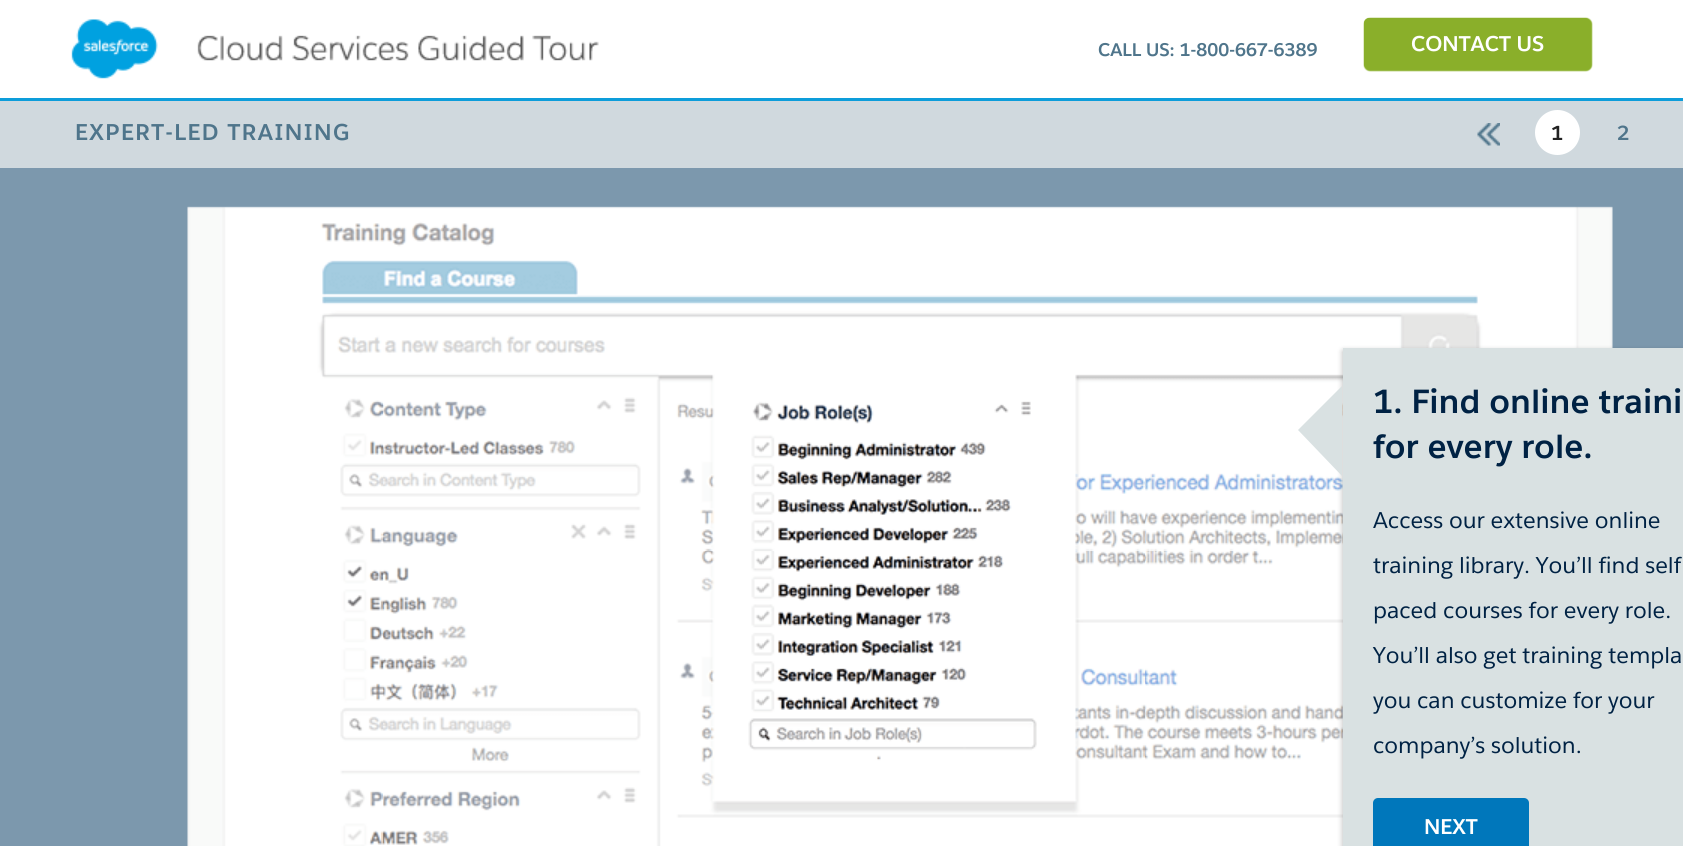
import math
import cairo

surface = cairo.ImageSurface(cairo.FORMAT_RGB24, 1683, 846)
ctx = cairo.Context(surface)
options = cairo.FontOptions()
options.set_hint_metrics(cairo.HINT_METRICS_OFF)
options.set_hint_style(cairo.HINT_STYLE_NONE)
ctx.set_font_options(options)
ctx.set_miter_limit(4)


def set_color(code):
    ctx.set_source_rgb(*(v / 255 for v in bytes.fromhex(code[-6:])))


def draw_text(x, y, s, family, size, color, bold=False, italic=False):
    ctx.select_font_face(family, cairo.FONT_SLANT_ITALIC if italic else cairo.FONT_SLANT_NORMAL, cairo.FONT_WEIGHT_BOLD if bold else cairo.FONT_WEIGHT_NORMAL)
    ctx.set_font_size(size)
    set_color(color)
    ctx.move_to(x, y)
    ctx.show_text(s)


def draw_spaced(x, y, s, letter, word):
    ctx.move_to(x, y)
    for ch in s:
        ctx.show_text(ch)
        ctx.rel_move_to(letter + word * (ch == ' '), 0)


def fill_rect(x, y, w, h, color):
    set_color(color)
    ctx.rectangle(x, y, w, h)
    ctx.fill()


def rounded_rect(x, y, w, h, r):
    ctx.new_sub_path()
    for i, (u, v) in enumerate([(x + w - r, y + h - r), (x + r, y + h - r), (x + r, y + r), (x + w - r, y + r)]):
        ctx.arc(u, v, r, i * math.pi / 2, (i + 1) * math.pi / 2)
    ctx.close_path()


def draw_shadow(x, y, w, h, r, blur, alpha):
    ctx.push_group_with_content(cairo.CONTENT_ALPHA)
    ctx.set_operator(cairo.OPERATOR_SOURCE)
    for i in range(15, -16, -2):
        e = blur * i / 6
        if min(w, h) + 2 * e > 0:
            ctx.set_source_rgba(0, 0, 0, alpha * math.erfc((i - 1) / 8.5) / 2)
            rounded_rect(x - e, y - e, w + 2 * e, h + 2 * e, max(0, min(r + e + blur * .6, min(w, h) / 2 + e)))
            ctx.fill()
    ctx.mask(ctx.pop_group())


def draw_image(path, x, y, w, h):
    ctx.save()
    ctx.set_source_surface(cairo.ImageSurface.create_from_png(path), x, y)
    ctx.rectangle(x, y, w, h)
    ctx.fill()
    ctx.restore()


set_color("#ffffff")
ctx.paint()
fill_rect(0, 98, 1683, 3, "#0d9dda")
draw_image("assets/img1.png", 71, 19, 528, 60)
draw_text(1098, 56, "CALL US: 1-800-667-6389", "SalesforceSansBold", 18, "#4f758b", bold=True)
set_color("#8aaf2a")
draw_shadow(1364, 18, 228, 53, 6, 0.5, 1)
set_color("#8aaf2a")
rounded_rect(1365, 19, 224, 49, 4)
ctx.fill_preserve()
ctx.stroke()
draw_text(1411, 51, "CONTACT US", "SalesforceSansBold", 21, "#ffffff", bold=True)
fill_rect(0, 101, 1683, 67, "#d0d9de")
ctx.set_font_size(22.5)
set_color("#4f758b")
draw_spaced(75, 140, "EXPERT-LED TRAINING", 1.5, 0)
draw_image("assets/img2.png", 1477, 123, 23, 23)
set_color("#ffffff")
ctx.arc(1557.5, 132.5, 22.5, 0, 2 * math.pi)
ctx.fill()
draw_text(1551, 140, "1", "SalesforceSansBold", 20, "#222222", bold=True)
draw_text(1617, 140, "2", "SalesforceSansBold", 20, "#4f758b", bold=True)
fill_rect(0, 168, 1683, 678, "#7c98ad")
draw_image("assets/img3.png", 187, 206, 1426, 640)
set_color("#000000")
draw_shadow(1343, 351, 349, 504, 0, 3, 0.3)
fill_rect(1343, 348, 340, 498, "#d9e1e2")
ctx.new_path()
ctx.move_to(1342, 386)
ctx.line_to(1342, 476)
ctx.line_to(1298, 430)
ctx.close_path()
ctx.fill()
draw_text(1373, 413, "1. Find online traini", "SalesforceSansBold", 33, "#002244", bold=True)
draw_text(1373, 458, "for every role.", "SalesforceSansBold", 33, "#002244", bold=True)
draw_text(1373, 528, "Access our extensive online", "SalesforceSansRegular", 22.5, "#002244")
draw_text(1373, 573, "training library. You’ll find self", "SalesforceSansRegular", 22.5, "#002244")
draw_text(1373, 618, "paced courses for every role.", "SalesforceSansRegular", 22.5, "#002244")
draw_text(1373, 663, "You’ll also get training templa", "SalesforceSansRegular", 22.5, "#002244")
draw_text(1373, 708, "you can customize for your", "SalesforceSansRegular", 22.5, "#002244")
draw_text(1373, 753, "company’s solution.", "SalesforceSansRegular", 22.5, "#002244")
set_color("#0077bb")
rounded_rect(1373, 798, 156, 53, 5)
ctx.fill()
draw_text(1424, 834, "NEXT", "SalesforceSansBold", 21, "#ffffff", bold=True)
surface.write_to_png("output.png")
